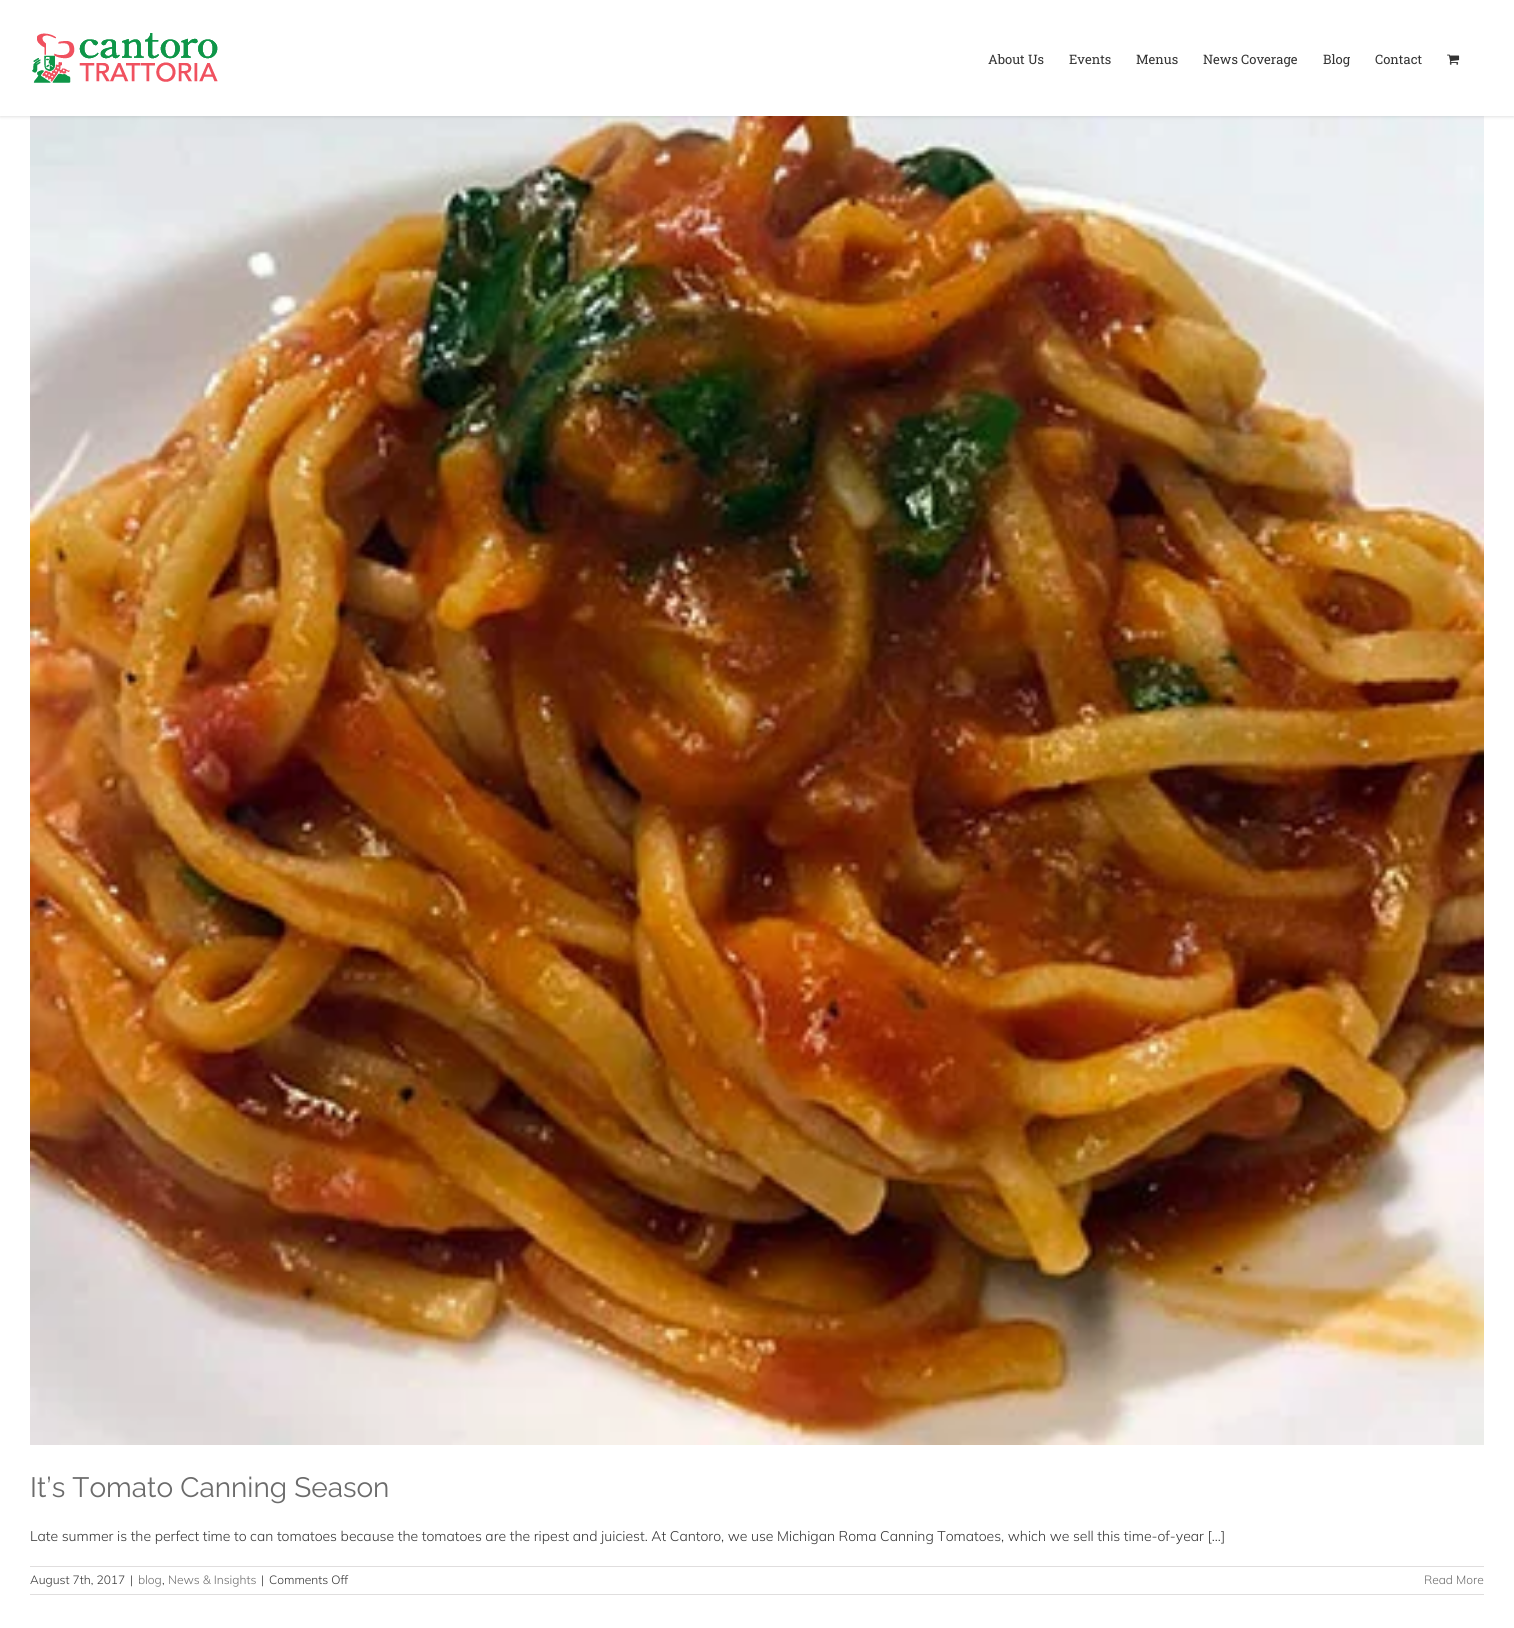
import math
import cairo

surface = cairo.ImageSurface(cairo.FORMAT_RGB24, 1514, 1628)
ctx = cairo.Context(surface)
options = cairo.FontOptions()
options.set_hint_metrics(cairo.HINT_METRICS_OFF)
options.set_hint_style(cairo.HINT_STYLE_NONE)
ctx.set_font_options(options)
ctx.set_miter_limit(4)


def set_color(code):
    ctx.set_source_rgb(*(v / 255 for v in bytes.fromhex(code[-6:])))


def draw_text(x, y, s, family, size, color, bold=False, italic=False):
    ctx.select_font_face(family, cairo.FONT_SLANT_ITALIC if italic else cairo.FONT_SLANT_NORMAL, cairo.FONT_WEIGHT_BOLD if bold else cairo.FONT_WEIGHT_NORMAL)
    ctx.set_font_size(size)
    set_color(color)
    ctx.move_to(x, y)
    ctx.show_text(s)


def fill_rect(x, y, w, h, color):
    set_color(color)
    ctx.rectangle(x, y, w, h)
    ctx.fill()


def rounded_rect(x, y, w, h, r):
    ctx.new_sub_path()
    for i, (u, v) in enumerate([(x + w - r, y + h - r), (x + r, y + h - r), (x + r, y + r), (x + w - r, y + r)]):
        ctx.arc(u, v, r, i * math.pi / 2, (i + 1) * math.pi / 2)
    ctx.close_path()


def draw_shadow(x, y, w, h, r, blur, alpha):
    ctx.push_group_with_content(cairo.CONTENT_ALPHA)
    ctx.set_operator(cairo.OPERATOR_SOURCE)
    for i in range(15, -16, -2):
        e = blur * i / 6
        if min(w, h) + 2 * e > 0:
            ctx.set_source_rgba(0, 0, 0, alpha * math.erfc((i - 1) / 8.5) / 2)
            rounded_rect(x - e, y - e, w + 2 * e, h + 2 * e, max(0, min(r + e + blur * .6, min(w, h) / 2 + e)))
            ctx.fill()
    ctx.mask(ctx.pop_group())


def draw_image(path, x, y, w, h):
    ctx.save()
    ctx.set_source_surface(cairo.ImageSurface.create_from_png(path), x, y)
    ctx.rectangle(x, y, w, h)
    ctx.fill()
    ctx.restore()


set_color("#ffffff")
ctx.paint()
draw_image("assets/img3.png", 30, 116, 1454, 1329)
set_color("#000000")
draw_shadow(0, 1, 1514, 116, 0, 1.5, 0.12)
fill_rect(0, 0, 1514, 116, "#ffffff")
draw_image("assets/img1.png", 32, 33, 186, 50)
draw_text(988, 64, "About Us", "Roboto Slab", 13, "#333333")
draw_text(1069, 64, "Events", "Roboto Slab", 13, "#333333")
draw_text(1136, 64, "Menus", "Roboto Slab", 13, "#333333")
draw_text(1203, 64, "News Coverage", "Roboto Slab", 13, "#333333")
draw_text(1323, 64, "Blog", "Roboto Slab", 13, "#333333")
draw_text(1375, 64, "Contact", "Roboto Slab", 13, "#333333")
draw_image("assets/img2.png", 1447, 54, 13, 11)
draw_text(30, 1497, "It’s Tomato Canning Season", "Raleway", 28, "#6b6b6b")
draw_text(30, 1541, "Late summer is the perfect time to can tomatoes because the tomatoes are the ripest and juiciest. At Cantoro, we use Michigan Roma Canning Tomatoes, which we sell this time-of-year [...]", "Mulish Light", 14, "#333333")
fill_rect(30, 1566, 1454, 1, "#e0dede")
fill_rect(30, 1594, 1454, 1, "#e0dede")
draw_text(30, 1584, "August 7th, 2017", "Mulish Light", 12, "#333333")
draw_text(130, 1584, "|", "Mulish Light", 12, "#333333")
draw_text(138, 1584, "blog", "Mulish Light", 12, "#6b6b6b")
draw_text(162, 1584, ",", "Mulish Light", 12, "#333333")
draw_text(168, 1584, "News & Insights", "Mulish Light", 12, "#6b6b6b")
draw_text(261, 1584, "|", "Mulish Light", 12, "#333333")
draw_text(269, 1584, "Comments Off", "Mulish Light", 12, "#333333")
draw_text(1424, 1584, "Read More", "Mulish Light", 12, "#6b6b6b")
surface.write_to_png("output.png")
